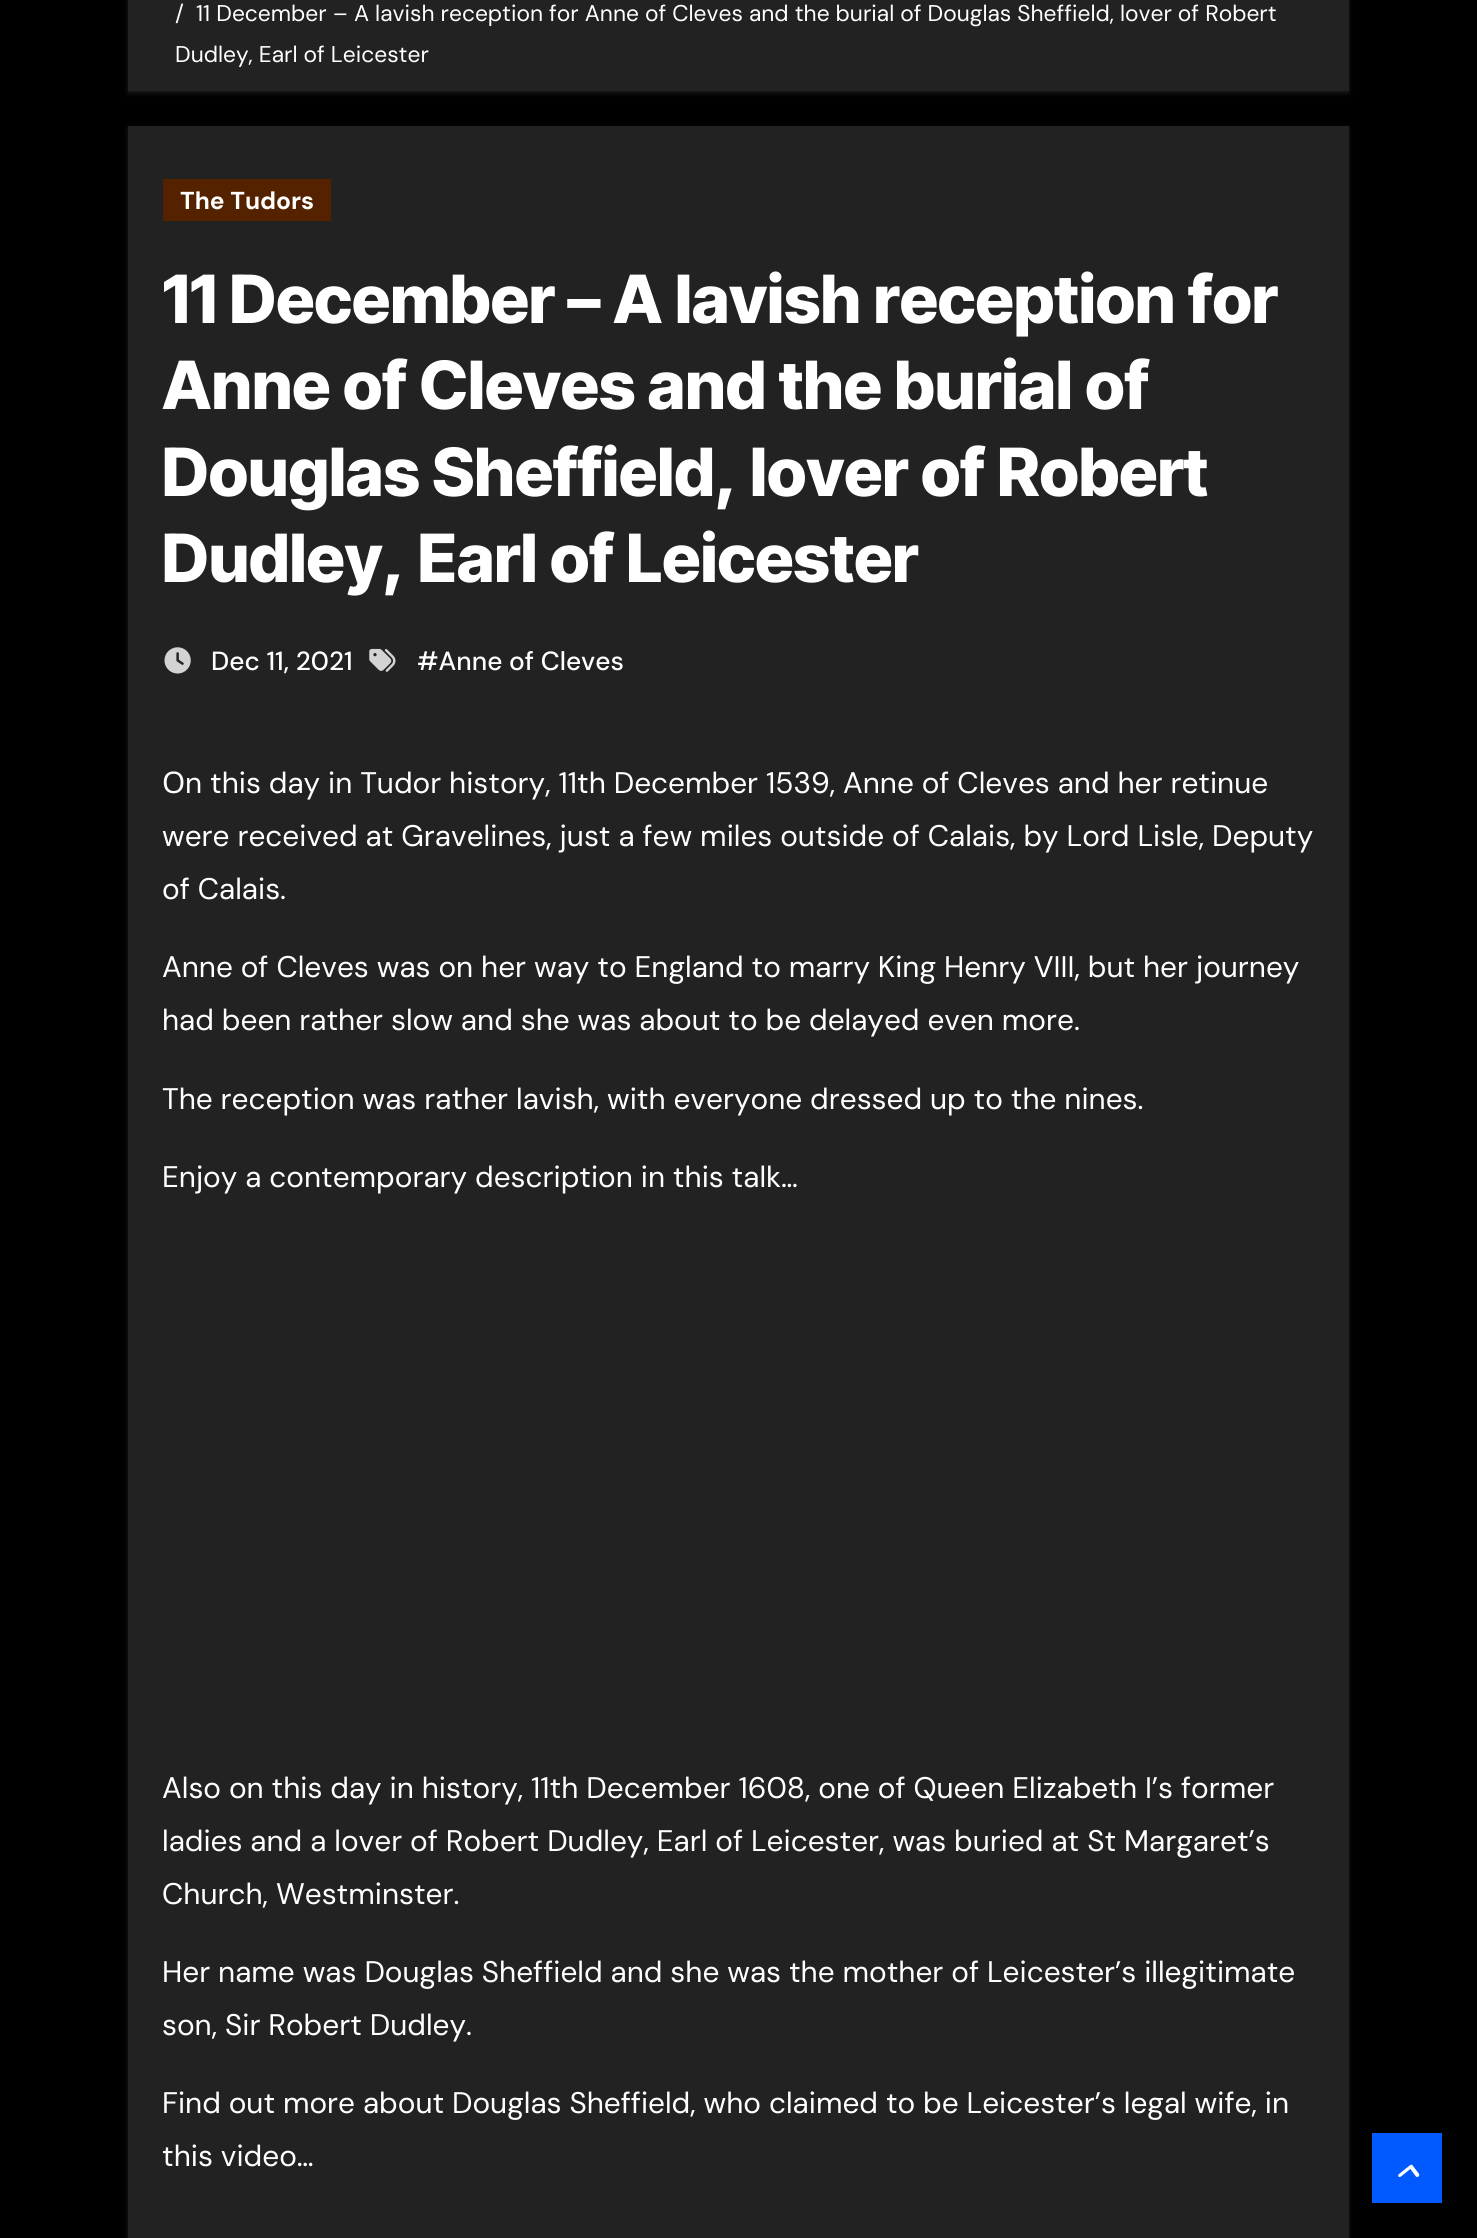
import math
import cairo

surface = cairo.ImageSurface(cairo.FORMAT_RGB24, 1477, 2238)
ctx = cairo.Context(surface)
options = cairo.FontOptions()
options.set_hint_metrics(cairo.HINT_METRICS_OFF)
options.set_hint_style(cairo.HINT_STYLE_NONE)
ctx.set_font_options(options)
ctx.set_miter_limit(4)


def set_color(code):
    ctx.set_source_rgb(*(v / 255 for v in bytes.fromhex(code[-6:])))


def draw_text(x, y, s, family, size, color, bold=False, italic=False):
    ctx.select_font_face(family, cairo.FONT_SLANT_ITALIC if italic else cairo.FONT_SLANT_NORMAL, cairo.FONT_WEIGHT_BOLD if bold else cairo.FONT_WEIGHT_NORMAL)
    ctx.set_font_size(size)
    set_color(color)
    ctx.move_to(x, y)
    ctx.show_text(s)


def fill_rect(x, y, w, h, color):
    set_color(color)
    ctx.rectangle(x, y, w, h)
    ctx.fill()


def rounded_rect(x, y, w, h, r):
    ctx.new_sub_path()
    for i, (u, v) in enumerate([(x + w - r, y + h - r), (x + r, y + h - r), (x + r, y + r), (x + w - r, y + r)]):
        ctx.arc(u, v, r, i * math.pi / 2, (i + 1) * math.pi / 2)
    ctx.close_path()


def draw_shadow(x, y, w, h, r, blur, alpha):
    ctx.push_group_with_content(cairo.CONTENT_ALPHA)
    ctx.set_operator(cairo.OPERATOR_SOURCE)
    for i in range(15, -16, -2):
        e = blur * i / 6
        if min(w, h) + 2 * e > 0:
            ctx.set_source_rgba(0, 0, 0, alpha * math.erfc((i - 1) / 8.5) / 2)
            rounded_rect(x - e, y - e, w + 2 * e, h + 2 * e, max(0, min(r + e + blur * .6, min(w, h) / 2 + e)))
            ctx.fill()
    ctx.mask(ctx.pop_group())


def draw_image(path, x, y, w, h):
    ctx.save()
    ctx.set_source_surface(cairo.ImageSurface.create_from_png(path), x, y)
    ctx.rectangle(x, y, w, h)
    ctx.fill()
    ctx.restore()


set_color("#000000")
ctx.paint()
set_color("#b9b9b9")
draw_shadow(128, -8, 1221, 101, 0, 2.5, 0.15)
fill_rect(128, 0, 1221, 91, "#222222")
draw_text(175, 21, "/", "DM Sans", 22.75, "#ffffff")
draw_text(196, 21, "11 December – A lavish reception for Anne of Cleves and the burial of Douglas Sheffield, lover of Robert", "DM Sans", 22.75, "#ffffff")
draw_text(175, 62, "Dudley, Earl of Leicester", "DM Sans", 22.75, "#ffffff")
set_color("#b9b9b9")
draw_shadow(128, 128, 1221, 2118, 0, 2.5, 0.15)
fill_rect(128, 126, 1221, 2112, "#222222")
fill_rect(163, 179, 168, 42, "#552200")
draw_text(180, 209, "The Tudors", "DM Sans", 24.5, "#ffffff", bold=True)
draw_text(162, 323, "11 December – A lavish reception for", "Inter Tight ExtraBold", 66.5, "#ffffff")
draw_text(162, 409, "Anne of Cleves and the burial of", "Inter Tight ExtraBold", 66.5, "#ffffff")
draw_text(162, 496, "Douglas Sheffield, lover of Robert", "Inter Tight ExtraBold", 66.5, "#ffffff")
draw_text(162, 582, "Dudley, Earl of Leicester", "Inter Tight ExtraBold", 66.5, "#ffffff")
draw_image("assets/img1.png", 164, 647, 27, 27)
draw_text(211, 670, "Dec 11, 2021", "DM Sans Medium", 26.25, "#ffffff")
draw_image("assets/img2.png", 369, 648, 27, 24)
draw_text(417, 670, "#Anne of Cleves", "DM Sans Medium", 26.25, "#ffffff")
draw_text(162, 793, "O", "Noto Sans", 29.75, "#ffffff")
draw_text(185, 793, "n this day in Tudor history, 11th December 1539, Anne of Cleves and her retinue", "DM Sans", 29.75, "#ffffff")
draw_text(162, 846, "were received at Gravelines, just a few miles outside of Calais, by Lord Lisle, Deputy", "DM Sans", 29.75, "#ffffff")
draw_text(162, 899, "of Calais.", "DM Sans", 29.75, "#ffffff")
draw_text(162, 977, "Anne of Cleves was on her way to England to marry King Henry VIII, but her journey", "DM Sans", 29.75, "#ffffff")
draw_text(162, 1030, "had been rather slow and she was about to be delayed even more.", "DM Sans", 29.75, "#ffffff")
draw_text(162, 1109, "The reception was rather lavish, with everyone dressed up to the nines.", "DM Sans", 29.75, "#ffffff")
draw_text(162, 1187, "Enjoy a contemporary description in this talk…", "DM Sans", 29.75, "#ffffff")
draw_text(162, 1798, "Also on this day in history, 11th December 1608, one of Queen Elizabeth I’s former", "DM Sans", 29.75, "#ffffff")
draw_text(162, 1851, "ladies and a lover of Robert Dudley, Earl of Leicester, was buried at St Margaret’s", "DM Sans", 29.75, "#ffffff")
draw_text(162, 1904, "Church, Westminster.", "DM Sans", 29.75, "#ffffff")
draw_text(162, 1982, "Her name was Douglas Sheffield and she was the mother of Leicester’s illegitimate", "DM Sans", 29.75, "#ffffff")
draw_text(162, 2035, "son, Sir Robert Dudley.", "DM Sans", 29.75, "#ffffff")
draw_text(162, 2113, "Find out more about Douglas Sheffield, who claimed to be Leicester’s legal wife, in", "DM Sans", 29.75, "#ffffff")
draw_text(162, 2166, "this video…", "DM Sans", 29.75, "#ffffff")
fill_rect(1372, 2133, 70, 70, "#005aff")
draw_image("assets/img3.png", 1398, 2164, 22, 13)
surface.write_to_png("output.png")
